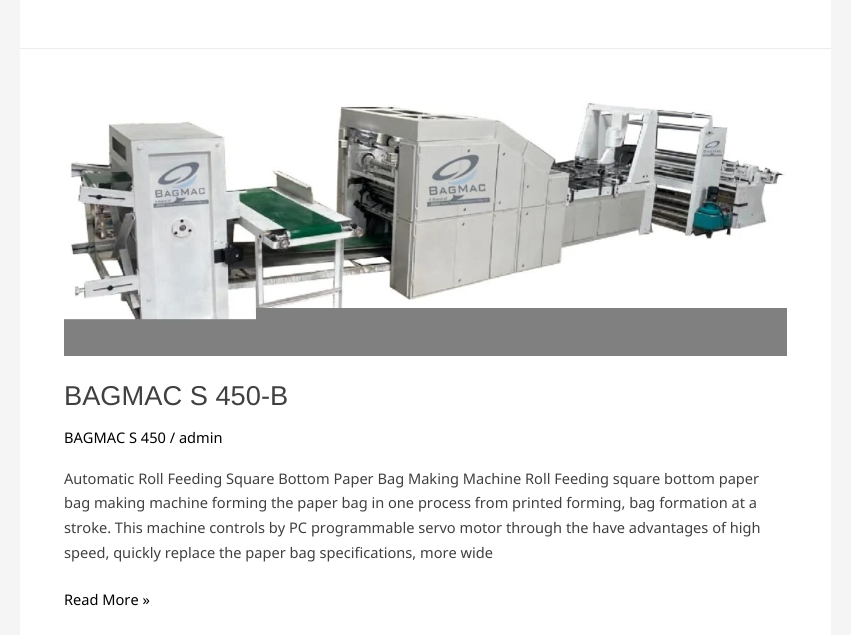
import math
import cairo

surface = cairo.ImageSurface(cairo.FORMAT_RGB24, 851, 635)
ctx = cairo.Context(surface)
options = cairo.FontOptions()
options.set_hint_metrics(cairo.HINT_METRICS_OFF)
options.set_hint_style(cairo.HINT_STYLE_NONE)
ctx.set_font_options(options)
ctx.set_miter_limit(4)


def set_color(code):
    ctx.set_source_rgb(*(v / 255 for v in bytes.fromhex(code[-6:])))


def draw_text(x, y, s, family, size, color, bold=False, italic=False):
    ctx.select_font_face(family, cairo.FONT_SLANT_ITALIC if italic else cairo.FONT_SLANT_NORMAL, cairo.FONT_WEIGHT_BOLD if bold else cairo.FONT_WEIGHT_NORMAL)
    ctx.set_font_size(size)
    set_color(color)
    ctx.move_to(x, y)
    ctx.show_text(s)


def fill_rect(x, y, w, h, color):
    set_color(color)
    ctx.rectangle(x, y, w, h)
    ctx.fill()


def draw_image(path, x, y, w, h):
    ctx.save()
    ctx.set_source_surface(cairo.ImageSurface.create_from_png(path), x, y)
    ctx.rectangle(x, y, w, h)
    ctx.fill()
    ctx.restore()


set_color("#f5f5f5")
ctx.paint()
fill_rect(20, 0, 811, 48, "#ffffff")
fill_rect(20, 48, 811, 1, "#ececec")
fill_rect(20, 49, 811, 586, "#ffffff")
draw_image("assets/img1.png", 64, 101, 723, 255)
draw_text(64, 405, "BAGMAC S 450-B", "Liberation Sans", 27.25, "#404040")
draw_text(64, 443, "BAGMAC S 450 / admin", "Noto Sans", 14.6, "#000000")
draw_text(64, 484, "Automatic Roll Feeding Square Bottom Paper Bag Making Machine Roll Feeding square bottom paper", "Noto Sans", 14.6, "#404040")
draw_text(64, 508, "bag making machine forming the paper bag in one process from printed forming, bag formation at a", "Noto Sans", 14.6, "#404040")
draw_text(64, 533, "stroke. This machine controls by PC programmable servo motor through the have advantages of high", "Noto Sans", 14.6, "#404040")
draw_text(64, 558, "speed, quickly replace the paper bag specifications, more wide", "Noto Sans", 14.6, "#404040")
draw_text(64, 605, "Read More »", "Noto Sans", 14.6, "#000000")
surface.write_to_png("output.png")
